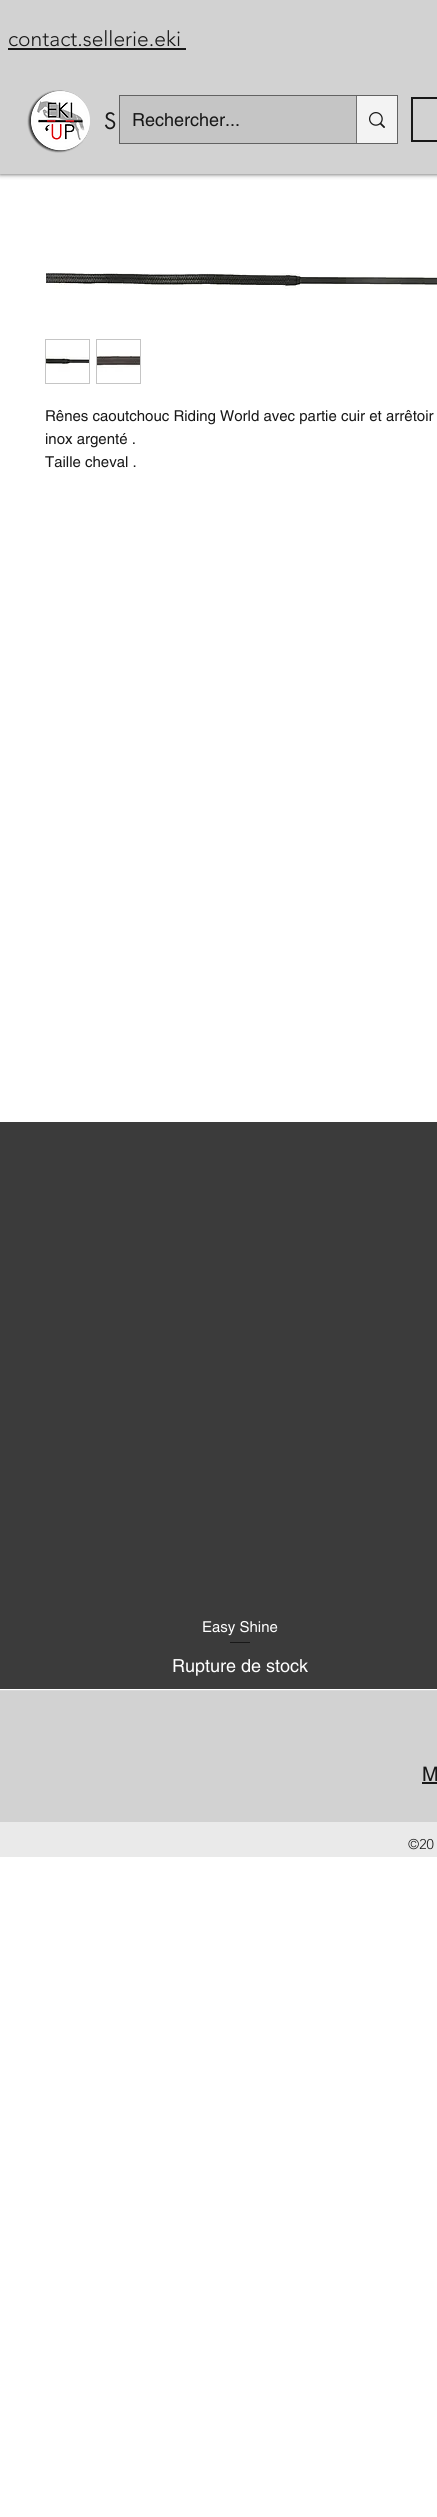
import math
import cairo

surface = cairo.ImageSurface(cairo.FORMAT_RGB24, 437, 2517)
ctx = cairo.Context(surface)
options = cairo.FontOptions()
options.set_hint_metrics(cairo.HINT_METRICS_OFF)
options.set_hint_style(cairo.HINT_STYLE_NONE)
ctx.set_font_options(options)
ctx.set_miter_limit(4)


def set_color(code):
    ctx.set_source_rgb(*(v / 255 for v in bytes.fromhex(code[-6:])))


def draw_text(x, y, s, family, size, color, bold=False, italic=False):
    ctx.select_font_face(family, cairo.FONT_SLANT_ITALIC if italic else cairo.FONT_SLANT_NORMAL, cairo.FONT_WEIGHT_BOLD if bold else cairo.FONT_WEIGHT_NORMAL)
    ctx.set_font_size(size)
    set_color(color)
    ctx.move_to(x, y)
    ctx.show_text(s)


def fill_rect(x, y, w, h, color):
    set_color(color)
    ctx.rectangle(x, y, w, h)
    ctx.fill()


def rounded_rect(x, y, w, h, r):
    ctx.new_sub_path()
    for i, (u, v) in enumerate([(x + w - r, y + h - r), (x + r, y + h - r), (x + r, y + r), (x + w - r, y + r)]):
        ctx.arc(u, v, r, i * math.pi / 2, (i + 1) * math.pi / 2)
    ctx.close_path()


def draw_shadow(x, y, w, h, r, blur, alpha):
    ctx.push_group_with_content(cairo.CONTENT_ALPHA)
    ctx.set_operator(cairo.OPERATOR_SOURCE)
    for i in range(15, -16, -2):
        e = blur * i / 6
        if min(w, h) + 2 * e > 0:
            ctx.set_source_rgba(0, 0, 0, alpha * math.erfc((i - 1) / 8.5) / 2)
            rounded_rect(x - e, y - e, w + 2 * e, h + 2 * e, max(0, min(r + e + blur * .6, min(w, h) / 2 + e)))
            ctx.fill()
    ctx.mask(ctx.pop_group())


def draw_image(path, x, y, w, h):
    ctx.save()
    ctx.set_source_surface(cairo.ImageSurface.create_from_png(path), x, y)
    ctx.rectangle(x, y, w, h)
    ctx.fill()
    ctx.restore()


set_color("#ffffff")
ctx.paint()
set_color("#000000")
draw_shadow(0, 0, 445, 174, 0, 2.5, 0.7)
fill_rect(0, 0, 437, 82, "#d2d2d2")
draw_text(8, 46, "contact.sellerie.eki", "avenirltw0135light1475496 Light", 21, "#181818")
fill_rect(8, 48, 178, 2, "#181818")
fill_rect(0, 82, 437, 92, "#d2d2d2")
draw_image("assets/img1.png", 27, 90, 63, 63)
draw_text(104, 129, "S", "futura", 22, "#181818")
ctx.rectangle(119.5, 95.5, 278, 48)
ctx.set_source_rgba(0.094, 0.094, 0.094, 0.6)
ctx.set_line_width(1)
ctx.stroke()
fill_rect(120, 96, 236, 47, "#c5c5c5")
draw_text(132, 126, "Rechercher...", "helvetica", 18, "#181818")
fill_rect(357, 96, 40, 47, "#f3f3f3")
fill_rect(356, 96, 1, 47, "#707070")
draw_image("assets/img2.png", 369, 112, 16, 16)
ctx.rectangle(412, 98, 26, 43)
set_color("#181818")
ctx.set_line_width(2)
ctx.stroke()
draw_image("assets/img3.png", 46, 273, 391, 16)
fill_rect(45, 339, 45, 45, "#c5c5c5")
draw_image("assets/img4.png", 46, 340, 43, 43)
fill_rect(96, 339, 45, 45, "#c5c5c5")
draw_image("assets/img5.png", 97, 340, 43, 43)
draw_text(45, 421, "Rênes caoutchouc Riding World avec partie cuir et arrêtoir", "helvetica", 15, "#181818")
draw_text(45, 444, "inox argenté .", "helvetica", 15, "#181818")
draw_text(45, 467, "Taille cheval .", "helvetica", 15, "#181818")
fill_rect(0, 1122, 437, 567, "#3b3b3b")
draw_text(202, 1632, "Easy Shine", "helvetica", 15, "#ffffff")
fill_rect(230, 1642, 20, 1, "#181818")
draw_text(172, 1672, "Rupture de stock", "helvetica", 18, "#ffffff")
fill_rect(0, 1691, 437, 131, "#d2d2d2")
fill_rect(0, 1690, 437, 1, "#d9d9d9")
draw_text(422, 1781, "M", "helvetica", 20, "#181818")
fill_rect(422, 1782, 15, 2, "#181818")
fill_rect(0, 1822, 437, 35, "#eaeaea")
draw_text(408, 1849, "©20", "avenirltw0135light1475496 Light", 14, "#181818")
surface.write_to_png("output.png")
